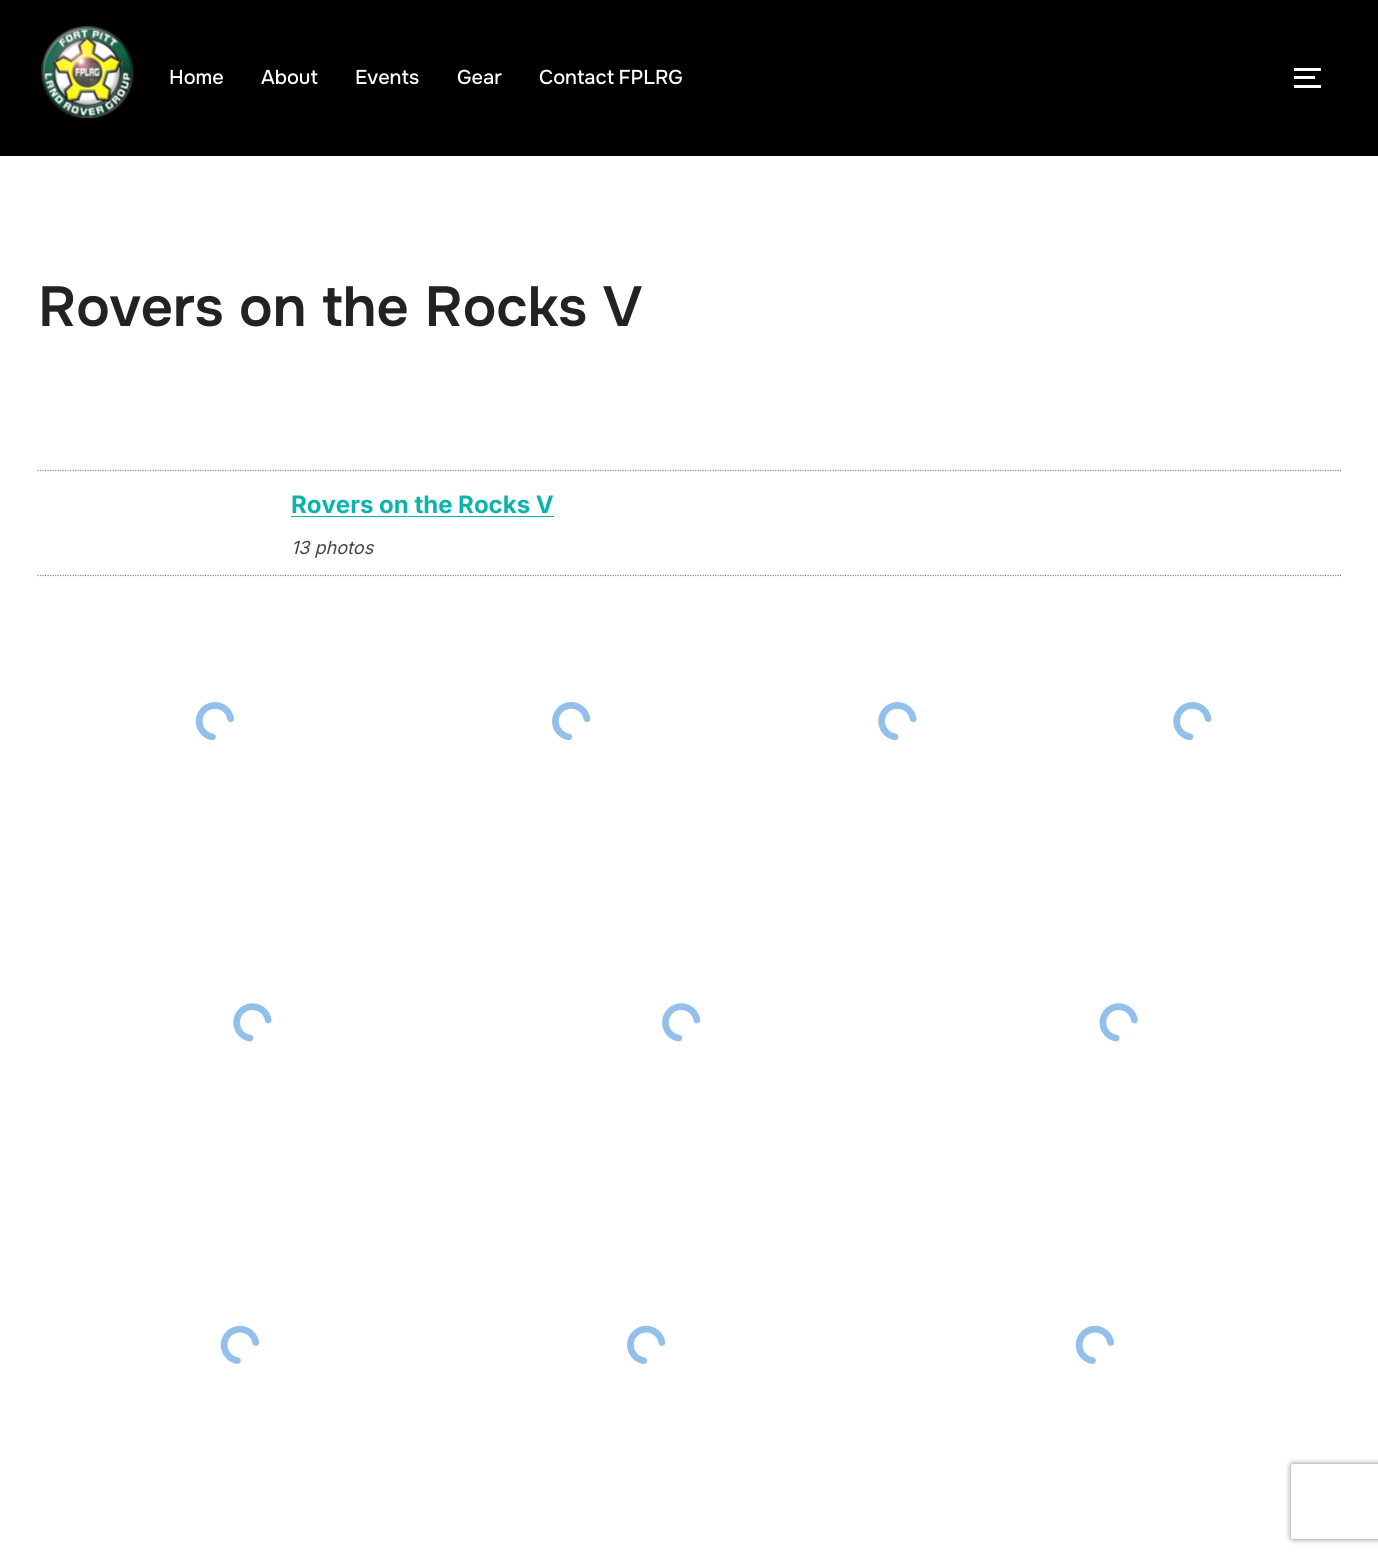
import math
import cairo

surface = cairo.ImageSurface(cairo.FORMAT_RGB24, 1378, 1556)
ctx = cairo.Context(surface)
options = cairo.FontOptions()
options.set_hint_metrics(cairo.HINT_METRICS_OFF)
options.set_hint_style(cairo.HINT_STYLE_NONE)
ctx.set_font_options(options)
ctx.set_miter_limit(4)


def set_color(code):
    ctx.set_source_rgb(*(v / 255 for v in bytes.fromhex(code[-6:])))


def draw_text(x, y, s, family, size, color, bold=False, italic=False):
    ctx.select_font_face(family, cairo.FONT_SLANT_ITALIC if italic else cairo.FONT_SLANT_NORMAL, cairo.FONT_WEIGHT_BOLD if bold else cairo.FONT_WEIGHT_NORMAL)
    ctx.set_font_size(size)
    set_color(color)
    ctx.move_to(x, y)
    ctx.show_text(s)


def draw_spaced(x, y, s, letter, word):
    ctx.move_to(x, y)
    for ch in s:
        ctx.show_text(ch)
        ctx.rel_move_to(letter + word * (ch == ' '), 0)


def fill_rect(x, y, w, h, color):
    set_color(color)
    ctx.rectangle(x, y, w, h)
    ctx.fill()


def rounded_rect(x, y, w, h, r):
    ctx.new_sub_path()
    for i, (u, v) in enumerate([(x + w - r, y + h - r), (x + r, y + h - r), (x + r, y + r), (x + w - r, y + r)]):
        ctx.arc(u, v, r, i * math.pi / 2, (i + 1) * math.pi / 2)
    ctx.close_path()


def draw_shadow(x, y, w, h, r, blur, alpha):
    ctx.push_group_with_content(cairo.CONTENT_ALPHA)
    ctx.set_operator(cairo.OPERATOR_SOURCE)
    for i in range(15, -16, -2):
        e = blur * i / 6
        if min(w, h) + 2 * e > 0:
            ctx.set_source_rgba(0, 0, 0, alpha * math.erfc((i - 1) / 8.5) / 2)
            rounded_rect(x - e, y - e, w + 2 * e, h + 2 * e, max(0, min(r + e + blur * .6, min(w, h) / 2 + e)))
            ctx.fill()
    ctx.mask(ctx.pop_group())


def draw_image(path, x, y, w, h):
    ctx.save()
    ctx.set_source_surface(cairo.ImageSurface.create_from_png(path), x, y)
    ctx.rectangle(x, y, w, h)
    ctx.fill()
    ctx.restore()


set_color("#ffffff")
ctx.paint()
fill_rect(0, 0, 1378, 156, "#000000")
draw_image("assets/img1.png", 41, 26, 93, 93)
draw_text(169, 84, "Home", "Onest Medium", 20, "#ffffff")
draw_text(261, 84, "About", "Onest Medium", 20, "#ffffff")
draw_text(355, 84, "Events", "Onest Medium", 20, "#ffffff")
draw_text(457, 84, "Gear", "Onest Medium", 20, "#ffffff")
draw_spaced(539, 84, "Contact FPLRG", 0, -1)
fill_rect(1294, 68, 27, 3, "#ffffff")
fill_rect(1294, 76, 21, 3, "#ffffff")
fill_rect(1294, 85, 27, 3, "#ffffff")
draw_text(38, 326, "Rovers on the Rocks V", "Onest SemiBold", 56.25, "#222222")
ctx.new_path()
ctx.move_to(37.5, 470.5)
ctx.line_to(1341, 470.5)
set_color("#888888")
ctx.set_line_width(1.2)
ctx.set_dash([1.25, 1.25])
ctx.stroke()
ctx.new_path()
ctx.move_to(37.5, 575.5)
ctx.line_to(1341, 575.5)
ctx.stroke()
draw_text(291, 513, "Rovers on the Rocks V", "Inter", 24, "#0bb4aa", bold=True)
fill_rect(291, 516, 263, 1, "#0bb4aa")
draw_text(291, 554, "13 photos", "Inter", 18, "#444444", italic=True)
draw_image("assets/img2.png", 195, 702, 39, 39)
draw_image("assets/img3.png", 552, 702, 39, 39)
draw_image("assets/img4.png", 878, 702, 39, 39)
draw_image("assets/img4.png", 1173, 702, 39, 39)
draw_image("assets/img5.png", 233, 1003, 39, 39)
draw_image("assets/img6.png", 662, 1003, 39, 39)
draw_image("assets/img7.png", 1099, 1003, 39, 39)
draw_image("assets/img8.png", 220, 1325, 39, 39)
draw_image("assets/img9.png", 627, 1325, 39, 39)
draw_image("assets/img8.png", 1075, 1325, 39, 39)
ctx.save()
ctx.set_fill_rule(cairo.FILL_RULE_EVEN_ODD)
ctx.new_path()
ctx.move_to(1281, 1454)
ctx.line_to(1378, 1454)
ctx.line_to(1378, 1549)
ctx.line_to(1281, 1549)
ctx.close_path()
ctx.move_to(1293.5, 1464)
ctx.line_to(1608.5, 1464)
ctx.curve_to(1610, 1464, 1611, 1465, 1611, 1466.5)
ctx.line_to(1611, 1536.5)
ctx.curve_to(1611, 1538, 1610, 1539, 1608.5, 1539)
ctx.line_to(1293.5, 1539)
ctx.curve_to(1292, 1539, 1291, 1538, 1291, 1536.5)
ctx.line_to(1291, 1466.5)
ctx.curve_to(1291, 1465, 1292, 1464, 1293.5, 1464)
ctx.close_path()
ctx.clip()
set_color("#808080")
draw_shadow(1291, 1464, 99, 75, 2.5, 3, 1)
ctx.restore()
surface.write_to_png("output.png")
